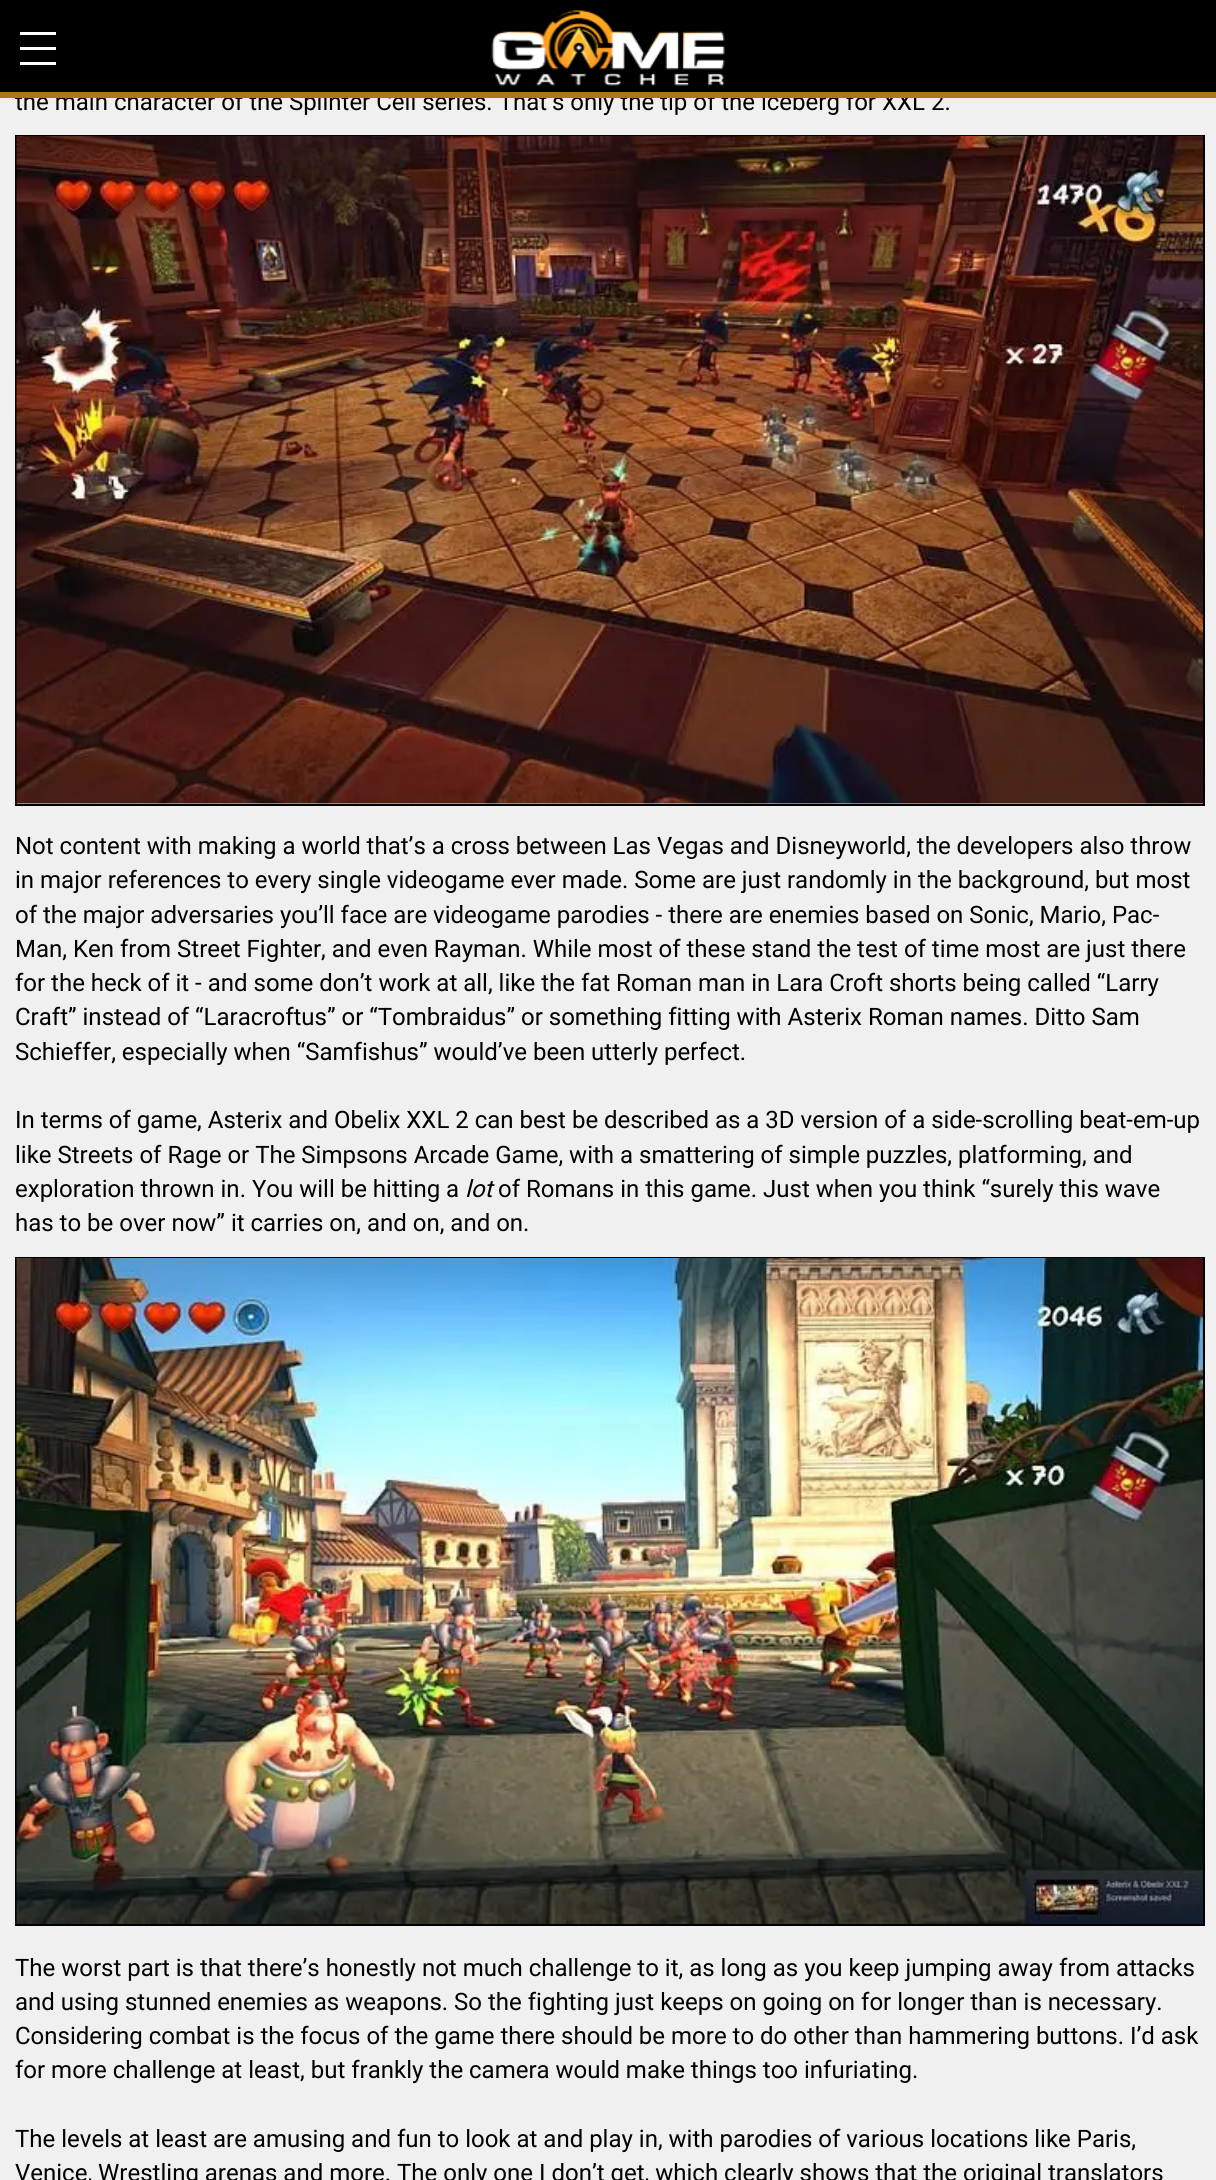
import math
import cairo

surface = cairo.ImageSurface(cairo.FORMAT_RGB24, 1216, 2180)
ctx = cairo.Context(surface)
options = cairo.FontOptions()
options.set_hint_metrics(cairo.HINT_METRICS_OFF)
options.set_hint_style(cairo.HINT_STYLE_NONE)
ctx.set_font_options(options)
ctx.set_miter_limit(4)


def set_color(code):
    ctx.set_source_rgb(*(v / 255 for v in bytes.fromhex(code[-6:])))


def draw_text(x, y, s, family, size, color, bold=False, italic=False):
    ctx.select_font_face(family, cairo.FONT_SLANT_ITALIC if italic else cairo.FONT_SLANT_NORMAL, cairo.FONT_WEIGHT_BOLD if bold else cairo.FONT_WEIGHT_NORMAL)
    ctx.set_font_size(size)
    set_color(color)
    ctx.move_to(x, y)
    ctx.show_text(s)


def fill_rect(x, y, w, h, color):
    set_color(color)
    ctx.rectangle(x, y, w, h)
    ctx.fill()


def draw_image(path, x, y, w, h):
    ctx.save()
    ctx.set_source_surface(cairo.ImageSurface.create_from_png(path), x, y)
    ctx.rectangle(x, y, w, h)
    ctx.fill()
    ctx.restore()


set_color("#f0f0f0")
ctx.paint()
fill_rect(0, 0, 1216, 92, "#000000")
draw_text(15, 110, "the main character of the Splinter Cell series. That’s only the tip of the iceberg for XXL 2.", "Roboto", 24, "#000000")
fill_rect(0, 92, 1216, 6, "#af7519")
fill_rect(20, 47, 36, 3, "#ffffff")
fill_rect(20, 32, 36, 3, "#ffffff")
fill_rect(20, 62, 36, 3, "#ffffff")
draw_image("assets/img1.png", 491, 10, 234, 76)
ctx.rectangle(16, 136, 1188, 669)
set_color("#000000")
ctx.stroke()
draw_image("assets/img2.png", 16, 136, 1187, 668)
draw_text(15, 854, "Not content with making a world that’s a cross between Las Vegas and Disneyworld, the developers also throw", "Roboto", 24, "#000000")
draw_text(15, 888, "in major references to every single videogame ever made. Some are just randomly in the background, but most", "Roboto", 24, "#000000")
draw_text(15, 923, "of the major adversaries you’ll face are videogame parodies - there are enemies based on Sonic, Mario, Pac-", "Roboto", 24, "#000000")
draw_text(15, 957, "Man, Ken from Street Fighter, and even Rayman. While most of these stand the test of time most are just there", "Roboto", 24, "#000000")
draw_text(15, 991, "for the heck of it - and some don’t work at all, like the fat Roman man in Lara Croft shorts being called “Larry", "Roboto", 24, "#000000")
draw_text(15, 1025, "Craft” instead of “Laracroftus” or “Tombraidus” or something fitting with Asterix Roman names. Ditto Sam", "Roboto", 24, "#000000")
draw_text(15, 1060, "Schieffer, especially when “Samfishus” would’ve been utterly perfect.", "Roboto", 24, "#000000")
draw_text(15, 1128, "In terms of game, Asterix and Obelix XXL 2 can best be described as a 3D version of a side-scrolling beat-em-up", "Roboto", 24, "#000000")
draw_text(15, 1163, "like Streets of Rage or The Simpsons Arcade Game, with a smattering of simple puzzles, platforming, and", "Roboto", 24, "#000000")
draw_text(15, 1197, "exploration thrown in. You will be hitting a", "Roboto", 24, "#000000")
draw_text(465, 1197, "lot", "Roboto", 24, "#000000", italic=True)
draw_text(498, 1197, "of Romans in this game. Just when you think “surely this wave", "Roboto", 24, "#000000")
draw_text(15, 1231, "has to be over now” it carries on, and on, and on.", "Roboto", 24, "#000000")
ctx.rectangle(16, 1258, 1188, 667)
ctx.stroke()
draw_image("assets/img3.png", 16, 1258, 1187, 666)
draw_text(15, 1976, "The worst part is that there’s honestly not much challenge to it, as long as you keep jumping away from attacks", "Roboto", 24, "#000000")
draw_text(15, 2010, "and using stunned enemies as weapons. So the fighting just keeps on going on for longer than is necessary.", "Roboto", 24, "#000000")
draw_text(15, 2044, "Considering combat is the focus of the game there should be more to do other than hammering buttons. I’d ask", "Roboto", 24, "#000000")
draw_text(15, 2078, "for more challenge at least, but frankly the camera would make things too infuriating.", "Roboto", 24, "#000000")
draw_text(15, 2147, "The levels at least are amusing and fun to look at and play in, with parodies of various locations like Paris,", "Roboto", 24, "#000000")
draw_text(15, 2181, "Venice, Wrestling arenas and more. The only one I don’t get, which clearly shows that the original translators", "Roboto", 24, "#000000")
surface.write_to_png("output.png")
